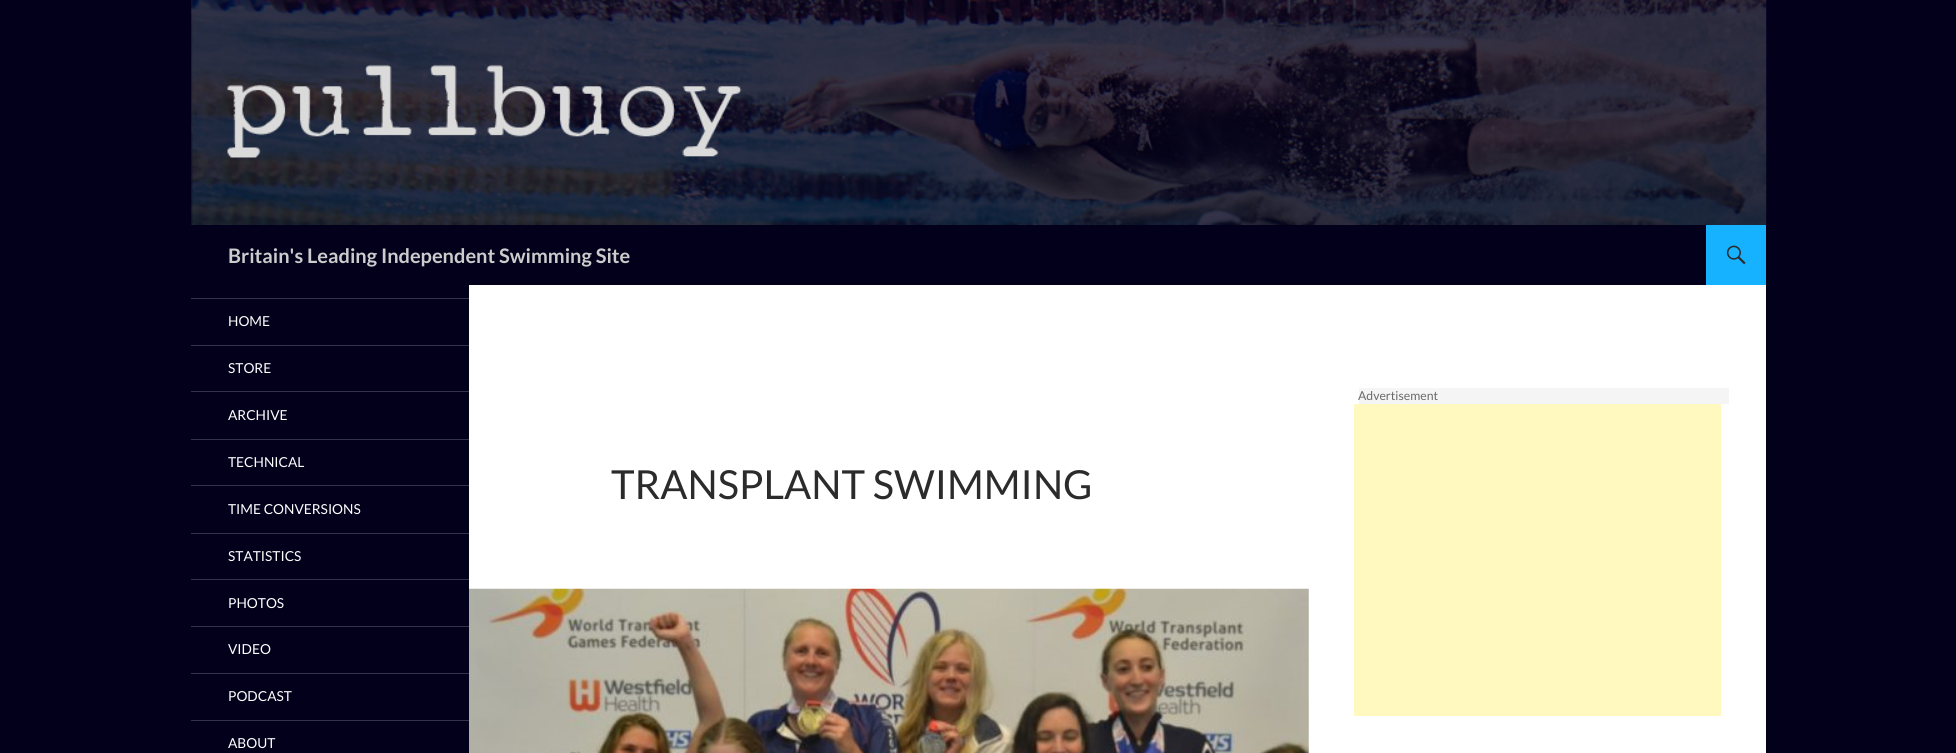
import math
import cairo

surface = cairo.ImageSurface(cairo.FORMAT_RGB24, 1956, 753)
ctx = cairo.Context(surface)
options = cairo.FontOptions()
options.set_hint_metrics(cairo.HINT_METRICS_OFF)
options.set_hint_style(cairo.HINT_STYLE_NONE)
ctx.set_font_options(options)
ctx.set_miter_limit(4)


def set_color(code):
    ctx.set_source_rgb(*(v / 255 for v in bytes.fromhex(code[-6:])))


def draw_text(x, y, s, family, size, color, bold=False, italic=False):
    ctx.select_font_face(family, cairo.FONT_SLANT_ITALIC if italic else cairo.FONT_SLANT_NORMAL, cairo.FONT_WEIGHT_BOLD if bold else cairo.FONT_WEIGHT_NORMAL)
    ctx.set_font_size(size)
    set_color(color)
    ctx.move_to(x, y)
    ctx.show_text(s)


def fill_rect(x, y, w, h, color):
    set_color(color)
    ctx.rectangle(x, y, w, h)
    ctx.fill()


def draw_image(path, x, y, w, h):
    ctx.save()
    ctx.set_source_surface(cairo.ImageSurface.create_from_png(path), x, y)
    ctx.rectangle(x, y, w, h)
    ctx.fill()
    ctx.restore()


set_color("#03001c")
ctx.paint()
fill_rect(469, 285, 1297, 468, "#ffffff")
draw_image("assets/img1.png", 191, 0, 1576, 225)
draw_text(228, 263, "Britain's Leading Independent Swimming Site", "Lato", 20, "#cccccc", bold=True)
fill_rect(1706, 225, 60, 60, "#16b1ff")
draw_image("assets/img2.png", 1726, 245, 20, 20)
fill_rect(191, 298, 278, 1, "#353349")
draw_text(228, 326, "HOME", "Lato", 13.75, "#ffffff")
fill_rect(191, 345, 278, 1, "#353349")
draw_text(228, 373, "STORE", "Lato", 13.75, "#ffffff")
fill_rect(191, 391, 278, 1, "#353349")
draw_text(228, 420, "ARCHIVE", "Lato", 13.75, "#ffffff")
fill_rect(191, 439, 278, 1, "#353349")
draw_text(228, 467, "TECHNICAL", "Lato", 13.75, "#ffffff")
fill_rect(191, 485, 278, 1, "#353349")
draw_text(228, 514, "TIME CONVERSIONS", "Lato", 13.75, "#ffffff")
fill_rect(191, 533, 278, 1, "#353349")
draw_text(228, 561, "STATISTICS", "Lato", 13.75, "#ffffff")
fill_rect(191, 579, 278, 1, "#353349")
draw_text(228, 608, "PHOTOS", "Lato", 13.75, "#ffffff")
fill_rect(191, 626, 278, 1, "#353349")
draw_text(228, 654, "VIDEO", "Lato", 13.75, "#ffffff")
fill_rect(191, 673, 278, 1, "#353349")
draw_text(228, 701, "PODCAST", "Lato", 13.75, "#ffffff")
fill_rect(191, 720, 278, 1, "#353349")
draw_text(228, 748, "ABOUT", "Lato", 13.75, "#ffffff")
fill_rect(1359, 388, 370, 16, "#f5f5f5")
draw_text(1358, 400, "Advertisement", "Lato", 12.25, "#696969")
fill_rect(1354, 404, 367, 312, "#fff9c0")
draw_text(611, 499, "TRANSPLANT SWIMMING", "Lato", 40, "#2b2b2b")
draw_image("assets/img3.png", 1308, 589, 1, 164)
draw_image("assets/img4.png", 469, 588, 840, 165)
surface.write_to_png("output.png")
